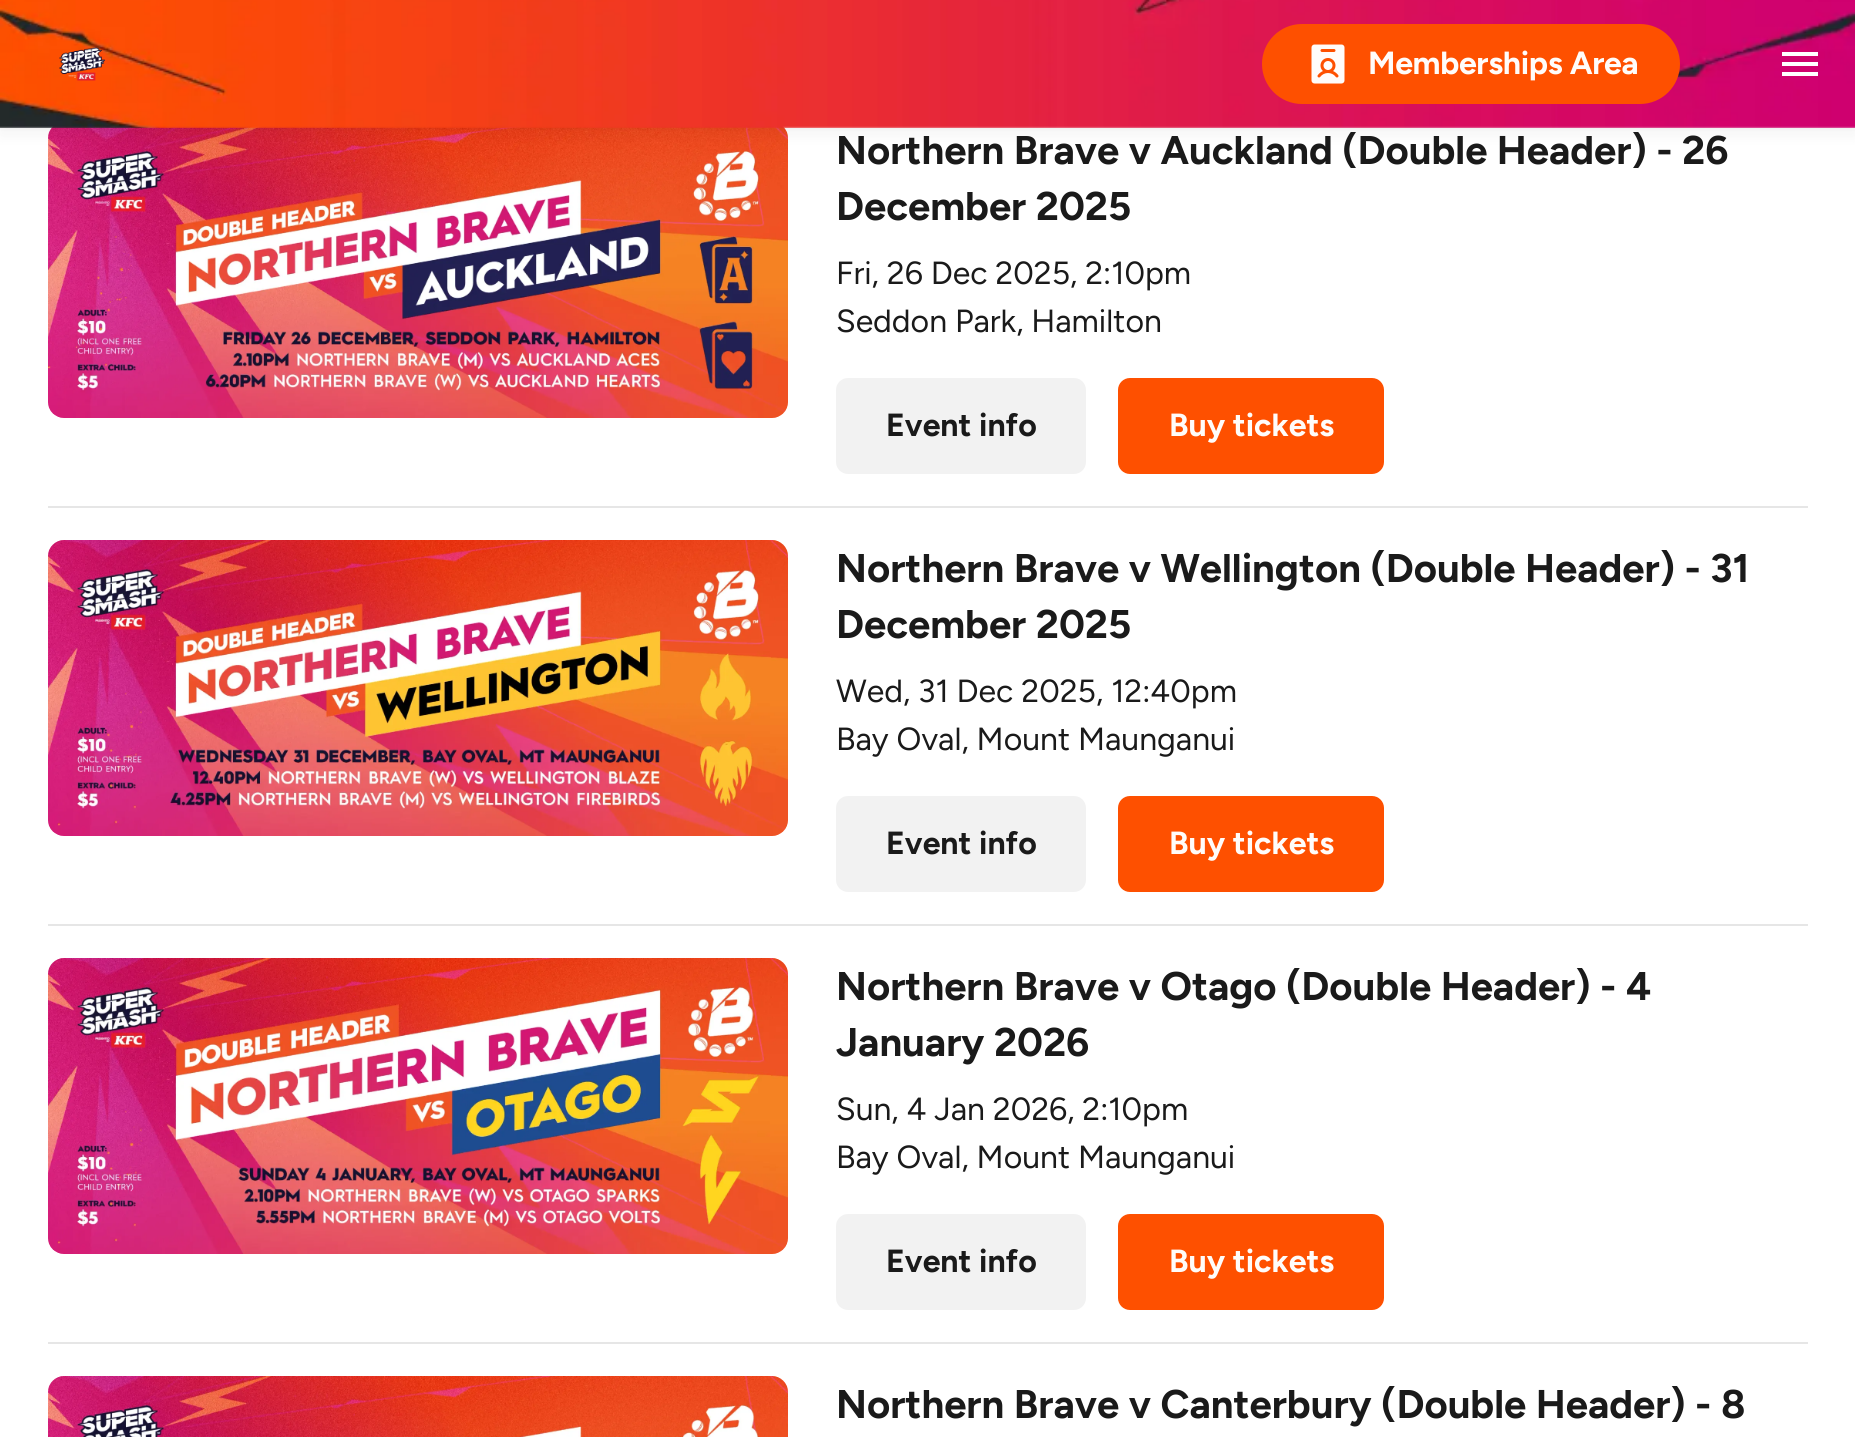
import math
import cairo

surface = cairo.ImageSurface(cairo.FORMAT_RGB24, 1855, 1437)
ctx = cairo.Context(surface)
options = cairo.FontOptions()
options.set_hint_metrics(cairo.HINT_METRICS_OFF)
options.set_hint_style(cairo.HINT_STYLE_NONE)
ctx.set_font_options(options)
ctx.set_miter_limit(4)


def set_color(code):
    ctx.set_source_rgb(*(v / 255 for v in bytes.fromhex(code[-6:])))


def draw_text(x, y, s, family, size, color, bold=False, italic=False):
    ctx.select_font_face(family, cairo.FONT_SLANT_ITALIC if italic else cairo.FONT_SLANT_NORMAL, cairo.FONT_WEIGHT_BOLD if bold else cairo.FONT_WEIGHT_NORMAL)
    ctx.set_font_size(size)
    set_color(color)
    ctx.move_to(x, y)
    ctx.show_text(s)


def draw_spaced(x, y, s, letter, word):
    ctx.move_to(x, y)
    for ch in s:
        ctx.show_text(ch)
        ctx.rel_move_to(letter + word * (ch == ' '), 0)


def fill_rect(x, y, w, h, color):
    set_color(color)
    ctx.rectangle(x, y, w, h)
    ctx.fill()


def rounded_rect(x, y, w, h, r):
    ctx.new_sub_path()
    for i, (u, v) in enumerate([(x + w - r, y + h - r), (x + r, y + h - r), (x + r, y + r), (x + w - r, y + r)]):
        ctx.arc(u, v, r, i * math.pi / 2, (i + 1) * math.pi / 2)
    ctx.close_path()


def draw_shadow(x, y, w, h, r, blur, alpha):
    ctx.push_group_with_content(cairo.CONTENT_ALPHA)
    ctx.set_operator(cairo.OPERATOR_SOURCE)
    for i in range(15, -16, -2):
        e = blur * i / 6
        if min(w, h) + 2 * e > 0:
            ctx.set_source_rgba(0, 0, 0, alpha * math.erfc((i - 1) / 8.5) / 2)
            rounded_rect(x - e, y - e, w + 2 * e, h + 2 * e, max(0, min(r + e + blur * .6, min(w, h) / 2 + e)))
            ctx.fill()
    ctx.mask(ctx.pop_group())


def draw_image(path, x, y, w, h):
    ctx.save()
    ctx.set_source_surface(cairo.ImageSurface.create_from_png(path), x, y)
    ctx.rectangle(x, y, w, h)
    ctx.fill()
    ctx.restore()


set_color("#ffffff")
ctx.paint()
draw_image("assets/img4.png", 48, 126, 740, 292)
set_color("#000000")
draw_shadow(0, 8, 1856, 128, 0, 8, 0.04)
draw_shadow(0, 0, 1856, 128, 0, 2, 0.06)
draw_image("assets/img1.png", 0, 0, 1855, 128)
draw_image("assets/img2.png", 59, 47, 47, 34)
set_color("#fe5000")
rounded_rect(1263, 25, 416, 78, 39)
ctx.fill_preserve()
ctx.stroke()
draw_image("assets/img3.png", 1311, 44, 34, 40)
ctx.select_font_face("Figtree", cairo.FONT_SLANT_NORMAL, cairo.FONT_WEIGHT_BOLD)
ctx.set_font_size(32)
set_color("#fffcfa")
draw_spaced(1368, 74, "Memberships Area", -0.3, 0)
set_color("#ffffff")
ctx.new_path()
ctx.move_to(1782, 76)
ctx.line_to(1818, 76)
ctx.line_to(1818, 72)
ctx.line_to(1782, 72)
ctx.close_path()
ctx.move_to(1782, 66)
ctx.line_to(1818, 66)
ctx.line_to(1818, 62)
ctx.line_to(1782, 62)
ctx.close_path()
ctx.move_to(1782, 52)
ctx.line_to(1782, 56)
ctx.line_to(1818, 56)
ctx.line_to(1818, 52)
ctx.close_path()
ctx.fill()
draw_text(836, 164, "Northern Brave v Auckland (Double Header) - 26", "Figtree", 40, "#1a1a1a", bold=True)
draw_text(836, 220, "December 2025", "Figtree", 40, "#1a1a1a", bold=True)
draw_text(836, 284, "Fri, 26 Dec 2025, 2:10pm", "Figtree", 32, "#1a1a1a")
draw_text(836, 332, "Seddon Park, Hamilton", "Figtree", 32, "#1a1a1a")
set_color("#f2f2f2")
rounded_rect(837, 379, 248, 94, 11)
ctx.fill_preserve()
ctx.stroke()
draw_text(886, 436, "Event info", "Figtree", 32, "#1a1a1a", bold=True)
set_color("#fe5000")
rounded_rect(1119, 379, 264, 94, 11)
ctx.fill_preserve()
ctx.stroke()
draw_text(1169, 436, "Buy tickets", "Figtree", 32, "#fffcfa", bold=True)
fill_rect(48, 506, 1760, 2, "#e6e6e6")
draw_image("assets/img5.png", 48, 540, 740, 296)
draw_text(836, 582, "Northern Brave v Wellington (Double Header) - 31", "Figtree", 40, "#1a1a1a", bold=True)
draw_text(836, 638, "December 2025", "Figtree", 40, "#1a1a1a", bold=True)
draw_text(836, 702, "Wed, 31 Dec 2025, 12:40pm", "Figtree", 32, "#1a1a1a")
draw_text(836, 750, "Bay Oval, Mount Maunganui", "Figtree", 32, "#1a1a1a")
set_color("#f2f2f2")
rounded_rect(837, 797, 248, 94, 11)
ctx.fill_preserve()
ctx.stroke()
draw_text(886, 854, "Event info", "Figtree", 32, "#1a1a1a", bold=True)
set_color("#fe5000")
rounded_rect(1119, 797, 264, 94, 11)
ctx.fill_preserve()
ctx.stroke()
draw_text(1169, 854, "Buy tickets", "Figtree", 32, "#fffcfa", bold=True)
fill_rect(48, 924, 1760, 2, "#e6e6e6")
draw_image("assets/img6.png", 48, 958, 740, 296)
draw_text(836, 1000, "Northern Brave v Otago (Double Header) - 4", "Figtree", 40, "#1a1a1a", bold=True)
draw_text(836, 1056, "January 2026", "Figtree", 40, "#1a1a1a", bold=True)
draw_text(836, 1120, "Sun, 4 Jan 2026, 2:10pm", "Figtree", 32, "#1a1a1a")
draw_text(836, 1168, "Bay Oval, Mount Maunganui", "Figtree", 32, "#1a1a1a")
set_color("#f2f2f2")
rounded_rect(837, 1215, 248, 94, 11)
ctx.fill_preserve()
ctx.stroke()
draw_text(886, 1272, "Event info", "Figtree", 32, "#1a1a1a", bold=True)
set_color("#fe5000")
rounded_rect(1119, 1215, 264, 94, 11)
ctx.fill_preserve()
ctx.stroke()
draw_text(1169, 1272, "Buy tickets", "Figtree", 32, "#fffcfa", bold=True)
fill_rect(48, 1342, 1760, 2, "#e6e6e6")
draw_image("assets/img7.png", 48, 1376, 740, 61)
draw_text(836, 1418, "Northern Brave v Canterbury (Double Header) - 8", "Figtree", 40, "#1a1a1a", bold=True)
surface.write_to_png("output.png")
